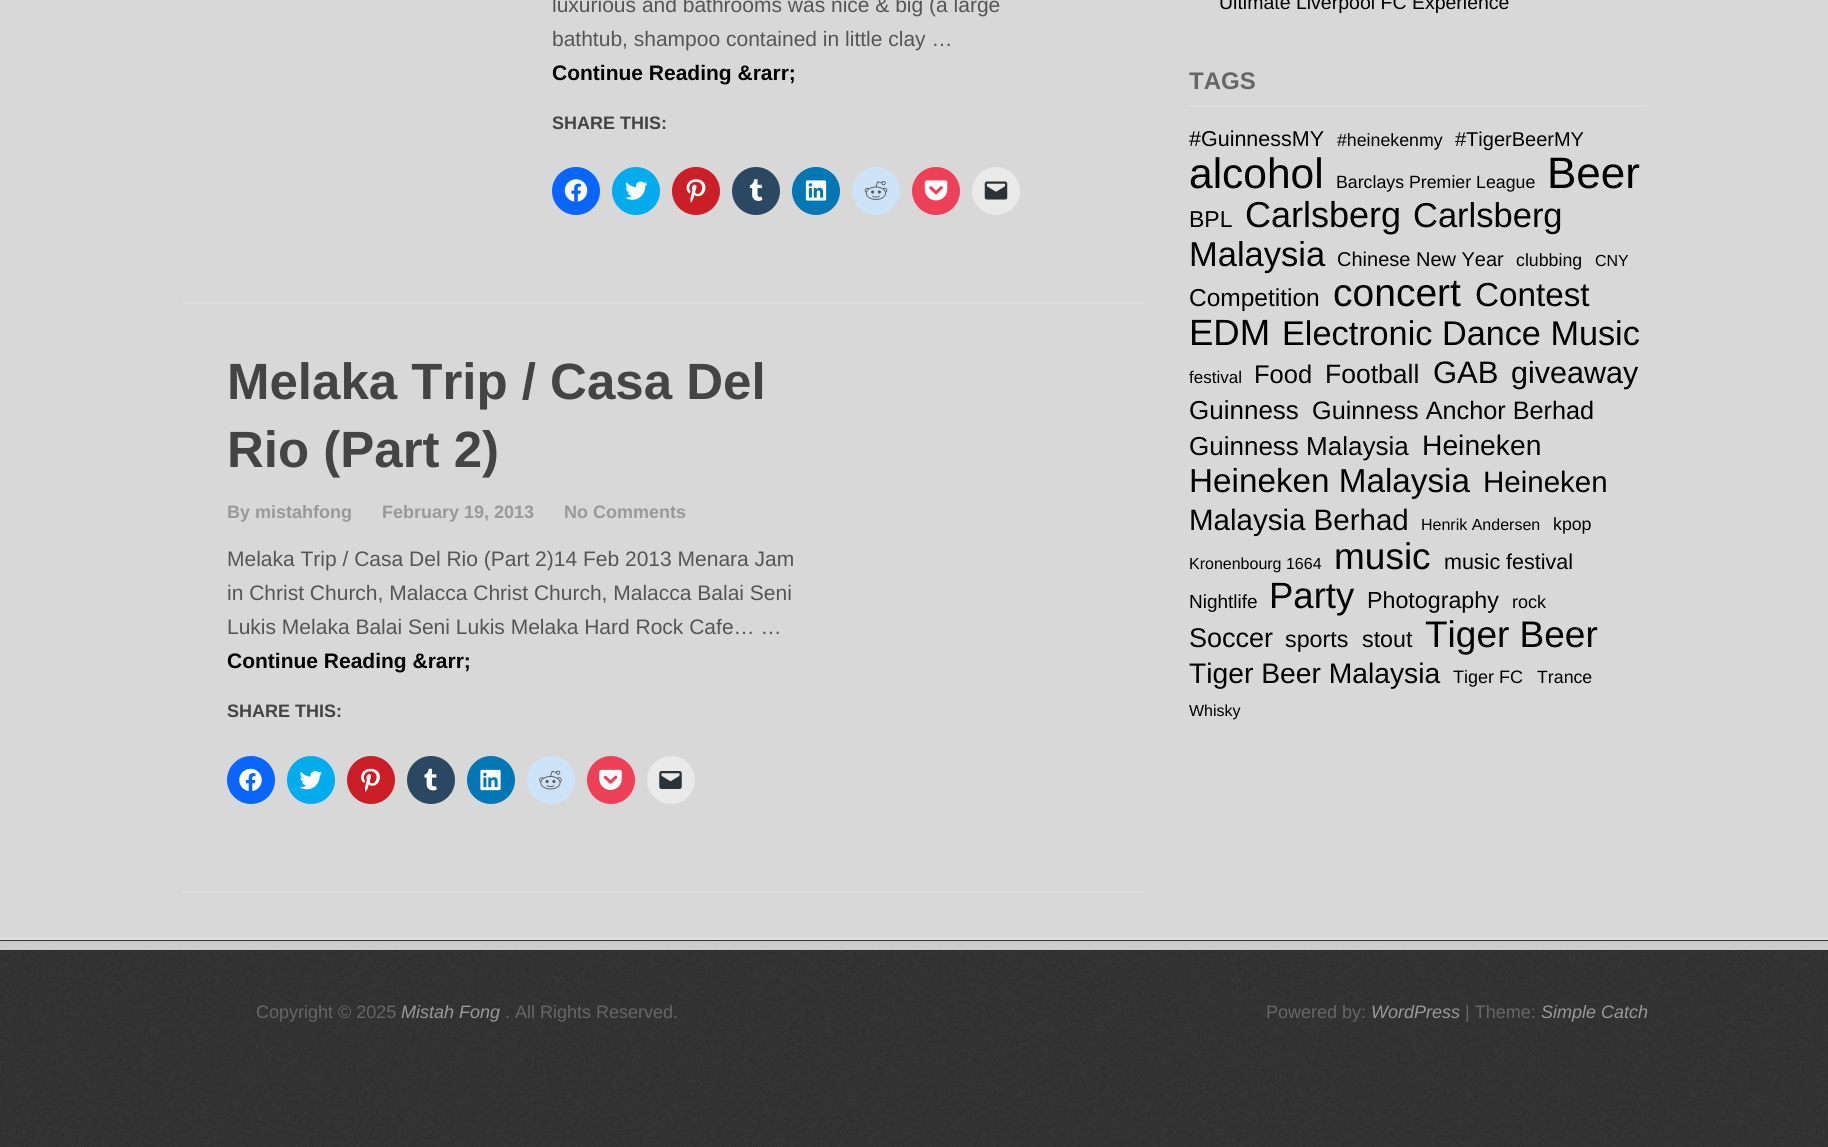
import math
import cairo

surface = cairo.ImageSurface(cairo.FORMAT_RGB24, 1828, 1147)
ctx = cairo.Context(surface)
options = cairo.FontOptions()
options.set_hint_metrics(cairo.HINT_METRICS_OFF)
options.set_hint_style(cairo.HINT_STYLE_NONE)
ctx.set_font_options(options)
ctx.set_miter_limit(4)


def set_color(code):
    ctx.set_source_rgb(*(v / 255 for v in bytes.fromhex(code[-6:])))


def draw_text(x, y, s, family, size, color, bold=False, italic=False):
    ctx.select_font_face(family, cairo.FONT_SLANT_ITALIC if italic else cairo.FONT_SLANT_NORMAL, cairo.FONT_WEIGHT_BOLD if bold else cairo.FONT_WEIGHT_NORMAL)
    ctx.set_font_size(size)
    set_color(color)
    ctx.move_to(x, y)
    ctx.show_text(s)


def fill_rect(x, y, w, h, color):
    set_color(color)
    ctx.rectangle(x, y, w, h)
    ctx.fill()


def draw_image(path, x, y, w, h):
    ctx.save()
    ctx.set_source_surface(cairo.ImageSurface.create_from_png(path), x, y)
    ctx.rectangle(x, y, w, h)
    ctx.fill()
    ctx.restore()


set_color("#d8d8d8")
ctx.paint()
fill_rect(182, 302, 961, 2, "#dddddd")
draw_text(552, 12, "luxurious and bathrooms was nice & big (a large", "Liberation Sans", 21, "#555555")
draw_text(552, 46, "bathtub, shampoo contained in little clay …", "Liberation Sans", 21, "#555555")
draw_text(552, 80, "Continue Reading &rarr;", "Liberation Sans", 21, "#000000", bold=True)
draw_text(552, 129, "SHARE THIS:", "Liberation Sans", 18, "#444444", bold=True)
set_color("#0866ff")
ctx.new_path()
ctx.arc(576, 191, 24, 0, 2 * math.pi)
ctx.fill()
draw_image("assets/img1.png", 564, 179, 24, 23)
set_color("#00acee")
ctx.arc(636, 191, 24, 0, 2 * math.pi)
ctx.fill()
draw_image("assets/img2.png", 625, 181, 23, 19)
set_color("#ca1f27")
ctx.arc(696, 191, 24, 0, 2 * math.pi)
ctx.fill()
draw_image("assets/img3.png", 686, 179, 20, 24)
set_color("#2c4762")
ctx.arc(756, 191, 24, 0, 2 * math.pi)
ctx.fill()
draw_image("assets/img4.png", 749, 179, 14, 22)
set_color("#0077b5")
ctx.arc(816, 191, 24, 0, 2 * math.pi)
ctx.fill()
draw_image("assets/img5.png", 805, 180, 22, 21)
set_color("#cee3f8")
ctx.arc(876, 191, 24, 0, 2 * math.pi)
ctx.fill()
draw_image("assets/img6.png", 864, 181, 24, 19)
set_color("#ee4056")
ctx.arc(936, 191, 24, 0, 2 * math.pi)
ctx.fill()
draw_image("assets/img7.png", 924, 180, 24, 21)
set_color("#e9e9e9")
ctx.arc(996, 191, 24, 0, 2 * math.pi)
ctx.fill()
draw_image("assets/img8.png", 984, 181, 24, 19)
fill_rect(182, 891, 961, 2, "#dddddd")
draw_text(227, 399, "Melaka Trip / Casa Del", "Liberation Sans", 51, "#444444", bold=True)
draw_text(227, 467, "Rio (Part 2)", "Liberation Sans", 51, "#444444", bold=True)
draw_text(227, 518, "By mistahfong", "Liberation Sans", 18, "#999999", bold=True)
draw_text(382, 518, "February 19, 2013", "Liberation Sans", 18, "#999999", bold=True)
draw_text(564, 518, "No Comments", "Liberation Sans", 18, "#999999", bold=True)
draw_text(227, 566, "Melaka Trip / Casa Del Rio (Part 2)14 Feb 2013 Menara Jam", "Liberation Sans", 21, "#555555")
draw_text(227, 600, "in Christ Church, Malacca Christ Church, Malacca Balai Seni", "Liberation Sans", 21, "#555555")
draw_text(227, 634, "Lukis Melaka Balai Seni Lukis Melaka Hard Rock Cafe… …", "Liberation Sans", 21, "#555555")
draw_text(227, 668, "Continue Reading &rarr;", "Liberation Sans", 21, "#000000", bold=True)
draw_text(227, 717, "SHARE THIS:", "Liberation Sans", 18, "#444444", bold=True)
set_color("#0866ff")
ctx.new_path()
ctx.arc(251, 780, 24, 0, 2 * math.pi)
ctx.fill()
draw_image("assets/img9.png", 239, 768, 23, 24)
set_color("#00acee")
ctx.arc(311, 780, 24, 0, 2 * math.pi)
ctx.fill()
draw_image("assets/img10.png", 299, 771, 23, 19)
set_color("#ca1f27")
ctx.arc(371, 780, 24, 0, 2 * math.pi)
ctx.fill()
draw_image("assets/img11.png", 361, 768, 19, 24)
set_color("#2c4762")
ctx.arc(431, 780, 24, 0, 2 * math.pi)
ctx.fill()
draw_image("assets/img12.png", 424, 768, 13, 23)
set_color("#0077b5")
ctx.arc(491, 780, 24, 0, 2 * math.pi)
ctx.fill()
draw_image("assets/img13.png", 480, 769, 21, 22)
set_color("#cee3f8")
ctx.arc(551, 780, 24, 0, 2 * math.pi)
ctx.fill()
draw_image("assets/img14.png", 539, 770, 23, 20)
set_color("#ee4056")
ctx.arc(611, 780, 24, 0, 2 * math.pi)
ctx.fill()
draw_image("assets/img15.png", 599, 769, 23, 21)
set_color("#e9e9e9")
ctx.arc(671, 780, 24, 0, 2 * math.pi)
ctx.fill()
draw_image("assets/img16.png", 659, 771, 23, 18)
draw_text(1219, 9, "Ultimate Liverpool FC Experience", "Liberation Sans", 19.5, "#000000")
fill_rect(1188, 105, 459, 2, "#dddddd")
draw_text(1189, 89, "TAGS", "Liberation Sans", 24, "#666666", bold=True)
draw_text(1189, 146, "#GuinnessMY", "Liberation Sans", 21.5, "#000000")
draw_text(1337, 146, "#heinekenmy", "Liberation Sans", 17.75, "#000000")
draw_text(1455, 146, "#TigerBeerMY", "Liberation Sans", 20, "#000000")
draw_text(1189, 188, "alcohol", "Liberation Sans", 42.5, "#000000")
draw_text(1336, 188, "Barclays Premier League", "Liberation Sans", 17.75, "#000000")
draw_text(1547, 188, "Beer", "Liberation Sans", 44, "#000000")
draw_text(1189, 227, "BPL", "Liberation Sans", 23, "#000000")
draw_text(1245, 227, "Carlsberg", "Liberation Sans", 36, "#000000")
draw_text(1413, 227, "Carlsberg", "Liberation Sans", 34.5, "#000000")
draw_text(1189, 266, "Malaysia", "Liberation Sans", 34.5, "#000000")
draw_text(1337, 266, "Chinese New Year", "Liberation Sans", 20, "#000000")
draw_text(1516, 266, "clubbing", "Liberation Sans", 17.75, "#000000")
draw_text(1595, 266, "CNY", "Liberation Sans", 16, "#000000")
draw_text(1189, 306, "Competition", "Liberation Sans", 24.5, "#000000")
draw_text(1333, 306, "concert", "Liberation Sans", 39, "#000000")
draw_text(1475, 306, "Contest", "Liberation Sans", 33.25, "#000000")
draw_text(1189, 345, "EDM", "Liberation Sans", 36.5, "#000000")
draw_text(1282, 345, "Electronic Dance Music", "Liberation Sans", 34.25, "#000000")
draw_text(1189, 383, "festival", "Liberation Sans", 17, "#000000")
draw_text(1254, 383, "Food", "Liberation Sans", 25.5, "#000000")
draw_text(1325, 383, "Football", "Liberation Sans", 26.5, "#000000")
draw_text(1433, 383, "GAB", "Liberation Sans", 31, "#000000")
draw_text(1511, 383, "giveaway", "Liberation Sans", 30.5, "#000000")
draw_text(1189, 419, "Guinness", "Liberation Sans", 26, "#000000")
draw_text(1312, 419, "Guinness Anchor Berhad", "Liberation Sans", 25.25, "#000000")
draw_text(1189, 455, "Guinness Malaysia", "Liberation Sans", 26, "#000000")
draw_text(1422, 455, "Heineken", "Liberation Sans", 28.25, "#000000")
draw_text(1189, 492, "Heineken Malaysia", "Liberation Sans", 33.25, "#000000")
draw_text(1483, 492, "Heineken", "Liberation Sans", 29.5, "#000000")
draw_text(1189, 530, "Malaysia Berhad", "Liberation Sans", 29.5, "#000000")
draw_text(1421, 530, "Henrik Andersen", "Liberation Sans", 16, "#000000")
draw_text(1553, 530, "kpop", "Liberation Sans", 17.75, "#000000")
draw_text(1189, 569, "Kronenbourg 1664", "Liberation Sans", 16, "#000000")
draw_text(1334, 569, "music", "Liberation Sans", 37, "#000000")
draw_text(1444, 569, "music festival", "Liberation Sans", 21.5, "#000000")
draw_text(1189, 608, "Nightlife", "Liberation Sans", 19, "#000000")
draw_text(1269, 608, "Party", "Liberation Sans", 36.5, "#000000")
draw_text(1367, 608, "Photography", "Liberation Sans", 23.25, "#000000")
draw_text(1512, 608, "rock", "Liberation Sans", 18, "#000000")
draw_text(1189, 647, "Soccer", "Liberation Sans", 27, "#000000")
draw_text(1285, 647, "sports", "Liberation Sans", 23.25, "#000000")
draw_text(1362, 647, "stout", "Liberation Sans", 23.25, "#000000")
draw_text(1425, 647, "Tiger Beer", "Liberation Sans", 37, "#000000")
draw_text(1189, 683, "Tiger Beer Malaysia", "Liberation Sans", 28.25, "#000000")
draw_text(1453, 683, "Tiger FC", "Liberation Sans", 18, "#000000")
draw_text(1537, 683, "Trance", "Liberation Sans", 17.75, "#000000")
draw_text(1189, 716, "Whisky", "Liberation Sans", 16, "#000000")
fill_rect(0, 938, 1828, 2, "#dfdfdf")
draw_image("assets/img17.png", 0, 940, 1828, 207)
fill_rect(0, 941, 1828, 9, "#cccccc")
draw_text(256, 1018, "Copyright © 2025", "Liberation Sans", 18, "#666666")
draw_text(401, 1018, "Mistah Fong", "Liberation Sans", 18, "#999999", italic=True)
draw_text(505, 1018, ". All Rights Reserved.", "Liberation Sans", 18, "#666666")
draw_text(1266, 1018, "Powered by:", "Liberation Sans", 18, "#666666")
draw_text(1371, 1018, "WordPress", "Liberation Sans", 18, "#999999", italic=True)
draw_text(1465, 1018, "| Theme:", "Liberation Sans", 18, "#666666")
draw_text(1541, 1018, "Simple Catch", "Liberation Sans", 18, "#999999", italic=True)
surface.write_to_png("output.png")
